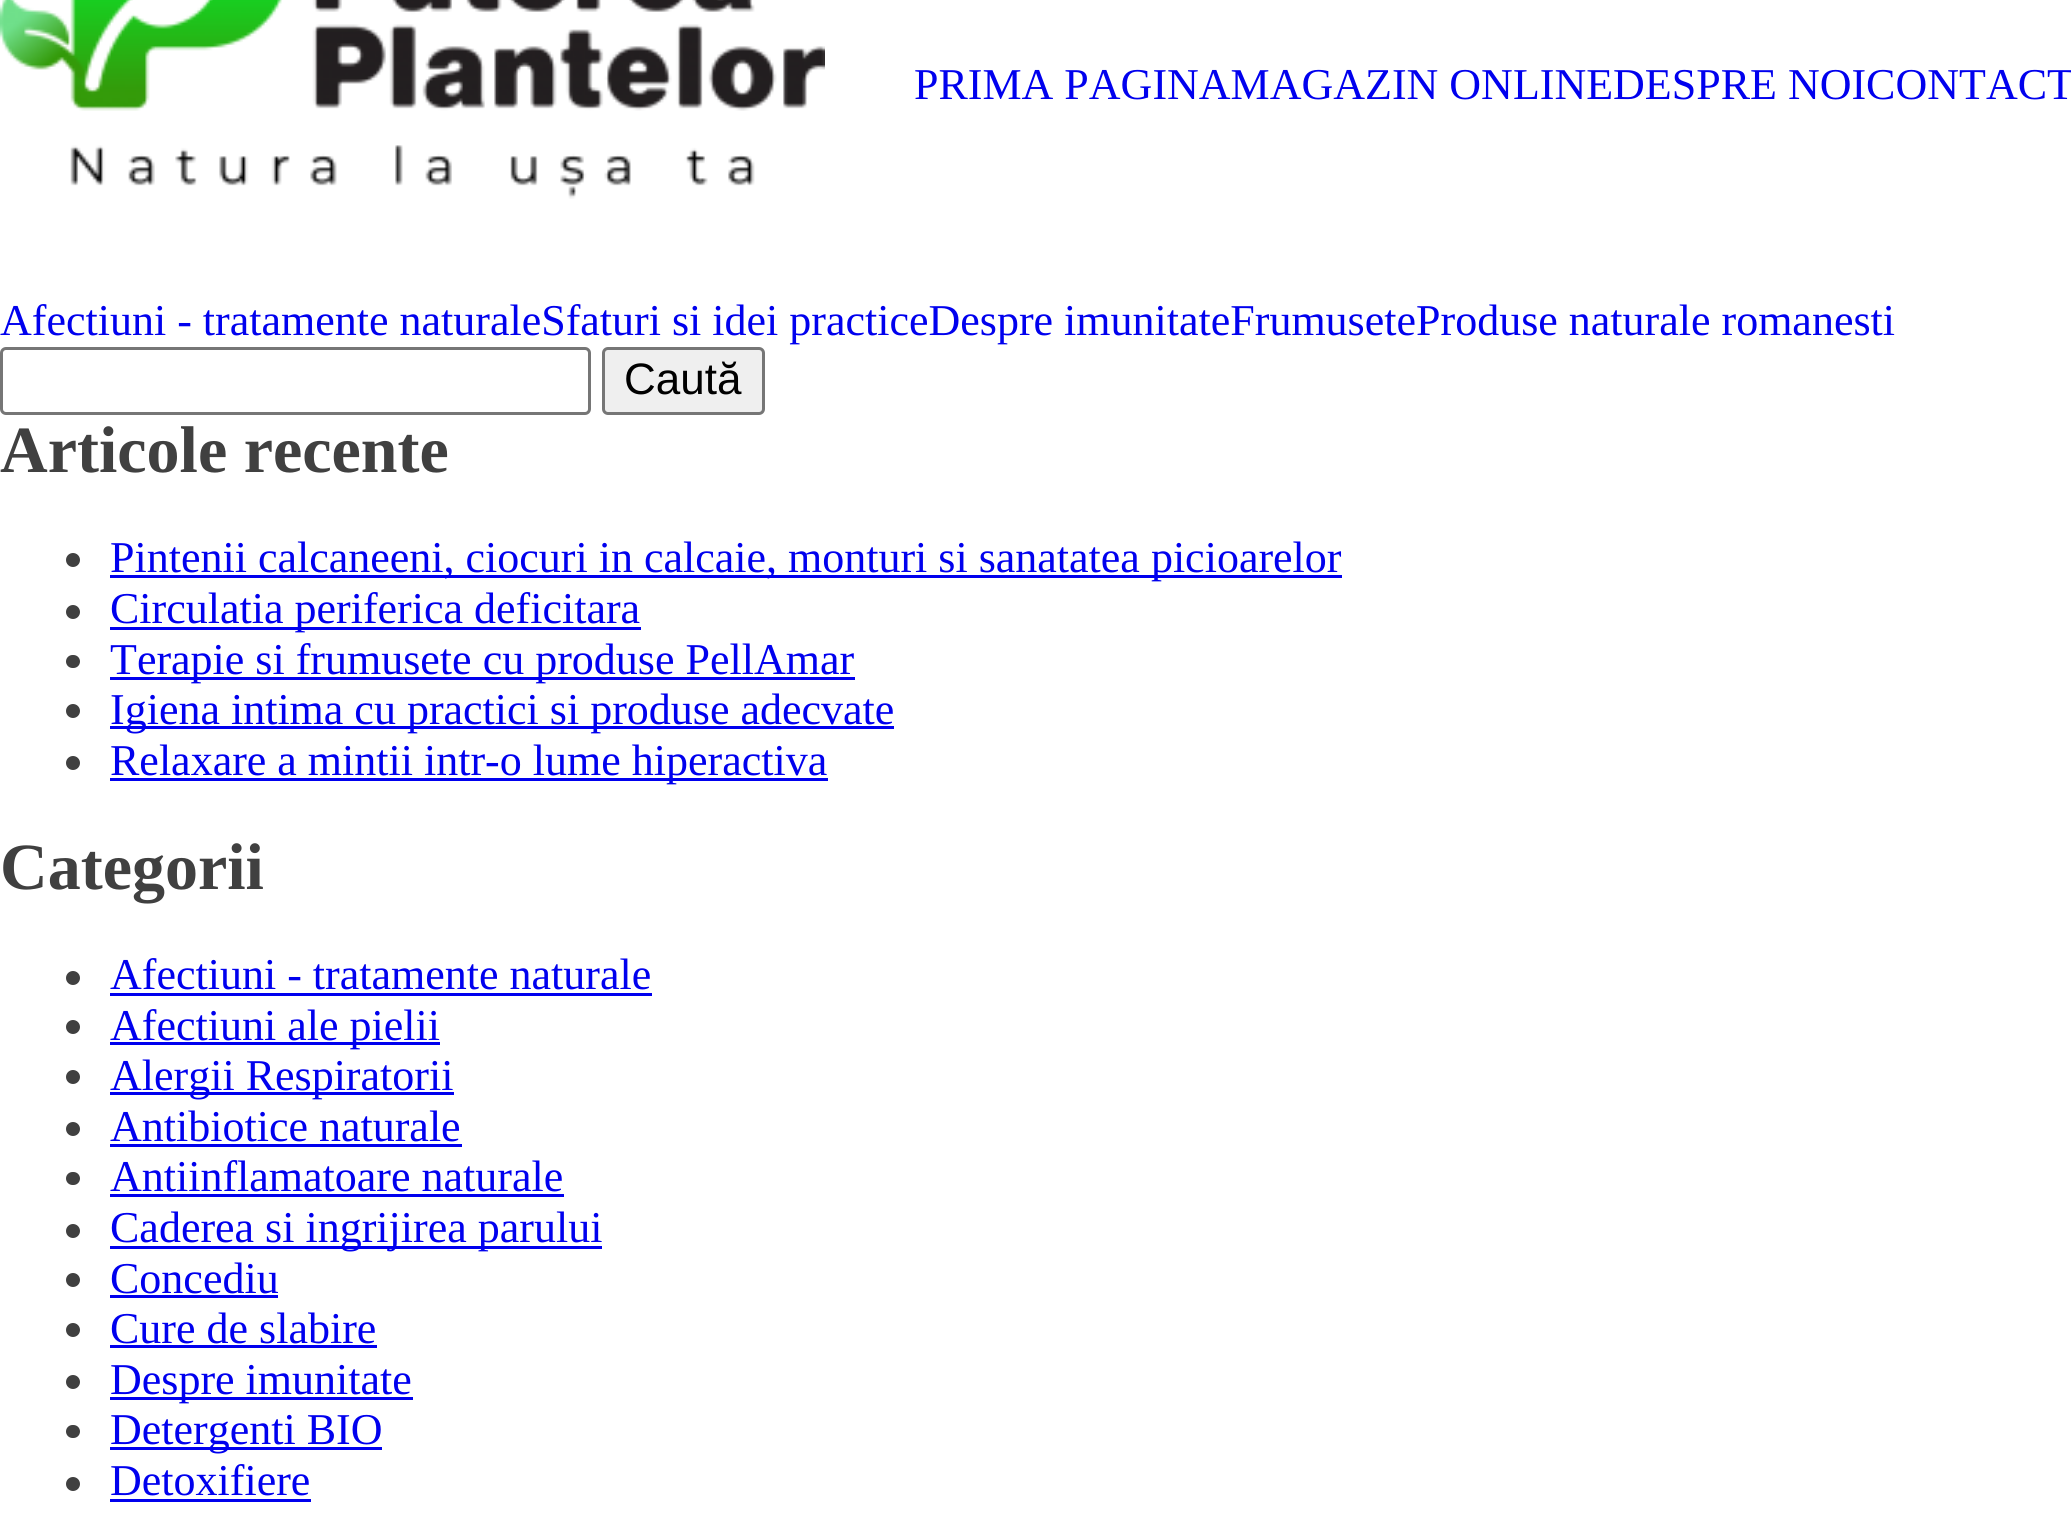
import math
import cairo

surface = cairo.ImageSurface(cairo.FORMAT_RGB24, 2071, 1522)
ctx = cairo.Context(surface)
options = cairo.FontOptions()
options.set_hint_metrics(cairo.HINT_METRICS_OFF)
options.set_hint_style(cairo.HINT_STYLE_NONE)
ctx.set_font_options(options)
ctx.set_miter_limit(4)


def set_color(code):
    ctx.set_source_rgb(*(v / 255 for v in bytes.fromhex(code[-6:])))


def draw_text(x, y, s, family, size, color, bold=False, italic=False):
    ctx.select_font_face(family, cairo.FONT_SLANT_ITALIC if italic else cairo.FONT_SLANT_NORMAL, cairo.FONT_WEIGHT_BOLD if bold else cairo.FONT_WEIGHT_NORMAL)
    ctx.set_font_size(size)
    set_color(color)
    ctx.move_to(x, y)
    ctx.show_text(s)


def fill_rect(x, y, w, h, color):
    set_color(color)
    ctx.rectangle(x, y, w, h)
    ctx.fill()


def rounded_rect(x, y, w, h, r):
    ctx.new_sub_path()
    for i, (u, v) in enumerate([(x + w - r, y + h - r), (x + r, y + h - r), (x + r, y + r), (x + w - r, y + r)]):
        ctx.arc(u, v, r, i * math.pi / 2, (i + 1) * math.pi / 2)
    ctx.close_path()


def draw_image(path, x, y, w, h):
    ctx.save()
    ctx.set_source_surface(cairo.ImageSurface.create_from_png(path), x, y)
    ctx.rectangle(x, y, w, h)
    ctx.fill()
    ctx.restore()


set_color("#ffffff")
ctx.paint()
draw_image("assets/img1.png", 0, 0, 825, 199)
draw_text(914, 99, "PRIMA PAGINAMAGAZIN ONLINEDESPRE NOICONTACT", "Liberation Serif", 44, "#0000ee")
draw_text(0, 335, "Afectiuni - tratamente naturaleSfaturi si idei practiceDespre imunitateFrumuseteProduse naturale romanesti", "Liberation Serif", 44, "#0000ee")
rounded_rect(1.5, 348.5, 588, 65, 4.5)
set_color("#767676")
ctx.set_line_width(3)
ctx.stroke()
set_color("#efefef")
rounded_rect(603.5, 348.5, 160, 65, 4.5)
ctx.fill_preserve()
set_color("#767676")
ctx.stroke()
draw_text(624, 394, "Caută", "Liberation Sans", 44, "#000000")
draw_text(0, 472, "Articole recente", "Liberation Serif", 66, "#404040", bold=True)
ctx.new_path()
ctx.arc(73, 560, 7, 0, 2 * math.pi)
ctx.fill()
fill_rect(110, 575, 1232, 3, "#0000ee")
draw_text(110, 572, "Pintenii calcaneeni, ciocuri in calcaie, monturi si sanatatea picioarelor", "Liberation Serif", 44, "#0000ee")
set_color("#404040")
ctx.new_path()
ctx.arc(73, 612, 7, 0, 2 * math.pi)
ctx.fill()
fill_rect(110, 627, 531, 3, "#0000ee")
draw_text(110, 623, "Circulatia periferica deficitara", "Liberation Serif", 44, "#0000ee")
set_color("#404040")
rounded_rect(66, 655, 14, 13, 6.5)
ctx.fill()
fill_rect(110, 677, 745, 3, "#0000ee")
draw_text(110, 674, "Terapie si frumusete cu produse PellAmar", "Liberation Serif", 44, "#0000ee")
set_color("#404040")
ctx.new_path()
ctx.arc(73, 711, 7, 0, 2 * math.pi)
ctx.fill()
fill_rect(110, 726, 784, 3, "#0000ee")
draw_text(110, 724, "Igiena intima cu practici si produse adecvate", "Liberation Serif", 44, "#0000ee")
set_color("#404040")
ctx.new_path()
ctx.arc(73, 763, 7, 0, 2 * math.pi)
ctx.fill()
fill_rect(110, 778, 718, 3, "#0000ee")
draw_text(110, 775, "Relaxare a mintii intr-o lume hiperactiva", "Liberation Serif", 44, "#0000ee")
draw_text(0, 889, "Categorii", "Liberation Serif", 66, "#404040", bold=True)
ctx.new_path()
ctx.arc(73, 978, 7, 0, 2 * math.pi)
ctx.fill()
draw_text(110, 989, "Afectiuni - tratamente naturale", "Liberation Serif", 44, "#0000ee")
fill_rect(110, 993, 542, 3, "#0000ee")
set_color("#404040")
ctx.new_path()
ctx.arc(73, 1027, 7, 0, 2 * math.pi)
ctx.fill()
fill_rect(110, 1042, 330, 3, "#0000ee")
draw_text(110, 1040, "Afectiuni ale pielii", "Liberation Serif", 44, "#0000ee")
set_color("#404040")
ctx.new_path()
ctx.arc(73, 1077, 7, 0, 2 * math.pi)
ctx.fill()
fill_rect(110, 1092, 344, 3, "#0000ee")
draw_text(110, 1090, "Alergii Respiratorii", "Liberation Serif", 44, "#0000ee")
set_color("#404040")
ctx.new_path()
ctx.arc(73, 1129, 7, 0, 2 * math.pi)
ctx.fill()
draw_text(110, 1141, "Antibiotice naturale", "Liberation Serif", 44, "#0000ee")
fill_rect(110, 1144, 352, 3, "#0000ee")
set_color("#404040")
rounded_rect(66, 1172, 14, 13, 6.5)
ctx.fill()
draw_text(110, 1191, "Antiinflamatoare naturale", "Liberation Serif", 44, "#0000ee")
fill_rect(110, 1194, 454, 3, "#0000ee")
set_color("#404040")
ctx.new_path()
ctx.arc(73, 1231, 7, 0, 2 * math.pi)
ctx.fill()
fill_rect(110, 1246, 492, 3, "#0000ee")
draw_text(110, 1242, "Caderea si ingrijirea parului", "Liberation Serif", 44, "#0000ee")
set_color("#404040")
ctx.new_path()
ctx.arc(73, 1280, 7, 0, 2 * math.pi)
ctx.fill()
draw_text(110, 1293, "Concediu", "Liberation Serif", 44, "#0000ee")
fill_rect(110, 1295, 168, 3, "#0000ee")
set_color("#404040")
ctx.new_path()
ctx.arc(73, 1330, 7, 0, 2 * math.pi)
ctx.fill()
draw_text(110, 1343, "Cure de slabire", "Liberation Serif", 44, "#0000ee")
fill_rect(110, 1345, 267, 3, "#0000ee")
set_color("#404040")
ctx.new_path()
ctx.arc(73, 1382, 7, 0, 2 * math.pi)
ctx.fill()
fill_rect(110, 1397, 303, 3, "#0000ee")
draw_text(110, 1394, "Despre imunitate", "Liberation Serif", 44, "#0000ee")
set_color("#404040")
rounded_rect(66, 1425, 14, 13, 6.5)
ctx.fill()
fill_rect(110, 1447, 272, 3, "#0000ee")
draw_text(110, 1444, "Detergenti BIO", "Liberation Serif", 44, "#0000ee")
set_color("#404040")
ctx.new_path()
ctx.arc(73, 1484, 7, 0, 2 * math.pi)
ctx.fill()
draw_text(110, 1495, "Detoxifiere", "Liberation Serif", 44, "#0000ee")
fill_rect(110, 1499, 201, 3, "#0000ee")
surface.write_to_png("output.png")
